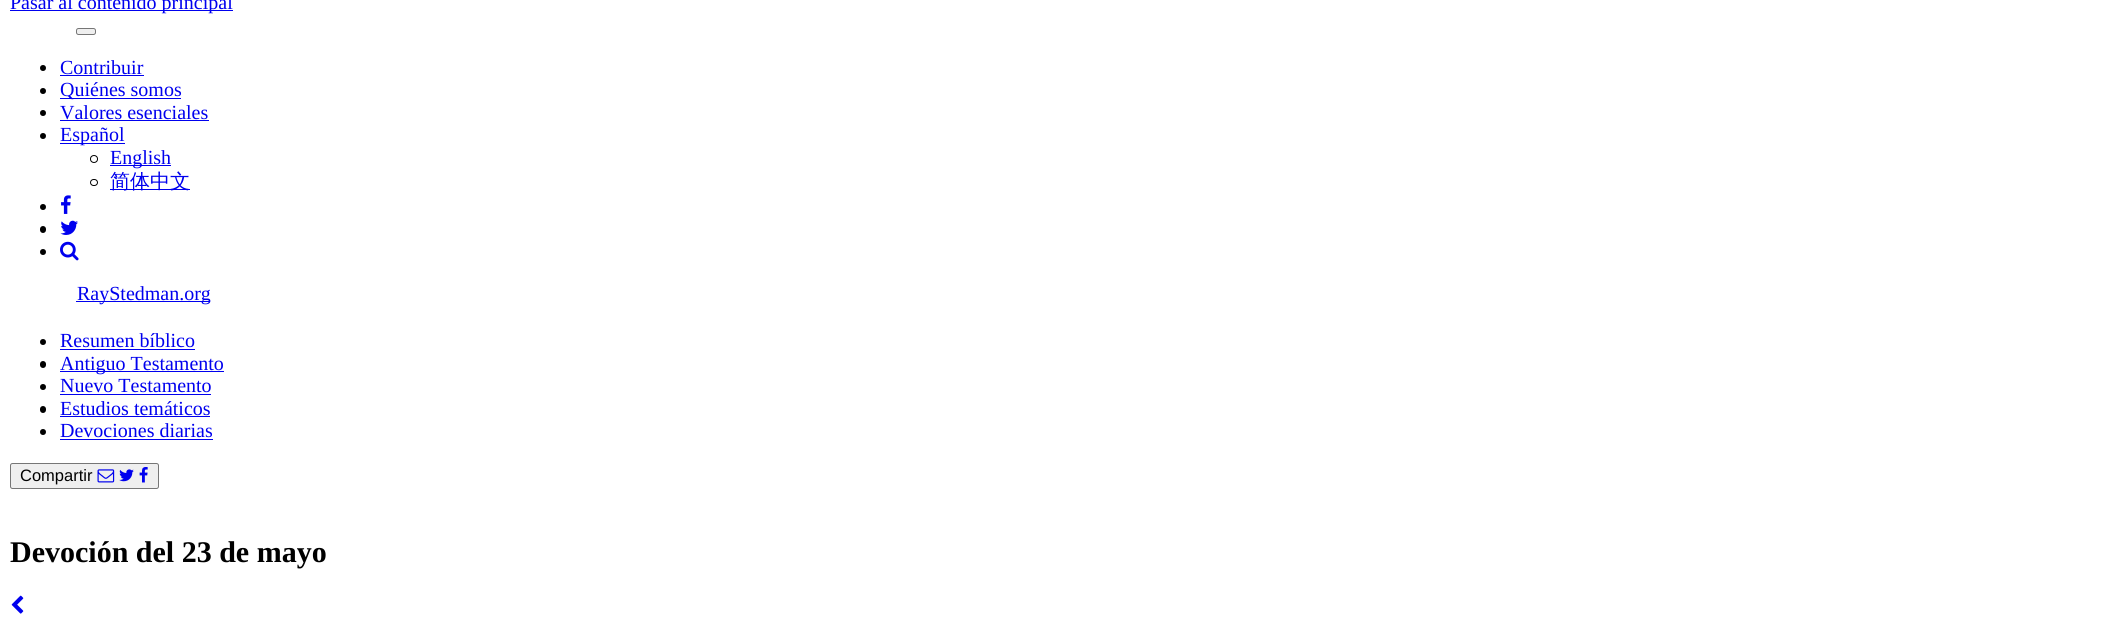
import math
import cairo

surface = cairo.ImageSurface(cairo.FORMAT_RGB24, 2124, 618)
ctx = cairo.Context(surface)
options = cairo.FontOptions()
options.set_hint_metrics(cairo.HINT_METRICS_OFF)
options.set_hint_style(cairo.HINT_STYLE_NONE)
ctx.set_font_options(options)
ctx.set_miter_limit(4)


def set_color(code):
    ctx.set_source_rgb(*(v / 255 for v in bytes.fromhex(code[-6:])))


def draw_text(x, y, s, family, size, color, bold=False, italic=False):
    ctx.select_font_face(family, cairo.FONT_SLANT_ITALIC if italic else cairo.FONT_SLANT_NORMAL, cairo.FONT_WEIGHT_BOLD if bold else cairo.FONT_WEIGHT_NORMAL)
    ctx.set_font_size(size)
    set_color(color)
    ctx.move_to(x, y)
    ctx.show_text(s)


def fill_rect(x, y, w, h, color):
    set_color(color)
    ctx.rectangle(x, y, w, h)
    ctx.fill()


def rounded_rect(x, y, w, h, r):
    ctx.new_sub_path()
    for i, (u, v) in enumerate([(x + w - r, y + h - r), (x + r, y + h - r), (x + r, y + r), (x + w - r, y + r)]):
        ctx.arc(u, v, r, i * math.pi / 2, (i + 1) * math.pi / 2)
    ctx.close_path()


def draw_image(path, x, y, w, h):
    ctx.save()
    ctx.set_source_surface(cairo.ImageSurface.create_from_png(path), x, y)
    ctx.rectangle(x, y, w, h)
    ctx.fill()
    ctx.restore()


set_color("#ffffff")
ctx.paint()
fill_rect(10, 10, 223, 1, "#0000ee")
draw_text(10, 9, "Pasar al contenido principal", "Liberation Serif", 20, "#0000ee")
set_color("#efefef")
rounded_rect(76.5, 28.5, 19, 6, 2)
ctx.fill_preserve()
set_color("#767676")
ctx.set_line_width(1)
ctx.stroke()
set_color("#000000")
ctx.arc(43, 68, 3, 0, 2 * math.pi)
ctx.fill()
draw_text(60, 74, "Contribuir", "Liberation Serif", 20, "#0000ee")
fill_rect(60, 75, 84, 1, "#0000ee")
set_color("#000000")
ctx.new_path()
ctx.arc(43, 91, 3, 0, 2 * math.pi)
ctx.fill()
fill_rect(60, 98, 121, 1, "#0000ee")
draw_text(60, 96, "Quiénes somos", "Liberation Serif", 20, "#0000ee")
set_color("#000000")
ctx.new_path()
ctx.arc(43, 113, 3, 0, 2 * math.pi)
ctx.fill()
draw_text(60, 119, "Valores esenciales", "Liberation Serif", 20, "#0000ee")
fill_rect(60, 120, 149, 1, "#0000ee")
set_color("#000000")
ctx.new_path()
ctx.arc(43, 136, 3, 0, 2 * math.pi)
ctx.fill()
fill_rect(60, 143, 65, 1, "#0000ee")
draw_text(60, 141, "Español", "Liberation Serif", 20, "#0000ee")
ctx.new_path()
ctx.arc(94, 159, 3.5, 0, 2 * math.pi)
set_color("#000000")
ctx.stroke()
fill_rect(110, 165, 61, 1, "#0000ee")
draw_text(110, 164, "English", "Liberation Serif", 20, "#0000ee")
rounded_rect(90.5, 179.5, 7, 6, 3)
set_color("#000000")
ctx.stroke()
fill_rect(110, 189, 80, 1, "#0000ee")
draw_text(110, 188, "简体中文", "WenQuanYi Zen Hei Medium", 20, "#0000ee")
set_color("#000000")
ctx.new_path()
ctx.arc(43, 207, 3, 0, 2 * math.pi)
ctx.fill()
draw_image("assets/img1.png", 61, 195, 10, 19)
rounded_rect(40, 226, 6, 7, 3)
ctx.fill()
draw_image("assets/img2.png", 60, 220, 18, 15)
ctx.arc(43, 252, 3, 0, 2 * math.pi)
ctx.fill()
draw_image("assets/img3.png", 60, 241, 19, 20)
fill_rect(76, 301, 134, 1, "#0000ee")
draw_text(77, 300, "RayStedman.org", "Liberation Serif", 20, "#0000ee")
set_color("#000000")
ctx.new_path()
ctx.arc(43, 342, 3, 0, 2 * math.pi)
ctx.fill()
draw_text(60, 347, "Resumen bíblico", "Liberation Serif", 20, "#0000ee")
fill_rect(60, 349, 135, 1, "#0000ee")
set_color("#000000")
rounded_rect(40, 361, 6, 7, 3)
ctx.fill()
fill_rect(60, 371, 164, 1, "#0000ee")
draw_text(60, 370, "Antiguo Testamento", "Liberation Serif", 20, "#0000ee")
set_color("#000000")
ctx.new_path()
ctx.arc(43, 387, 3, 0, 2 * math.pi)
ctx.fill()
draw_text(60, 392, "Nuevo Testamento", "Liberation Serif", 20, "#0000ee")
fill_rect(60, 394, 151, 1, "#0000ee")
set_color("#000000")
rounded_rect(40, 406, 6, 7, 3)
ctx.fill()
draw_text(60, 415, "Estudios temáticos", "Liberation Serif", 20, "#0000ee")
fill_rect(60, 416, 150, 1, "#0000ee")
set_color("#000000")
ctx.new_path()
ctx.arc(43, 432, 3, 0, 2 * math.pi)
ctx.fill()
draw_text(60, 437, "Devociones diarias", "Liberation Serif", 20, "#0000ee")
fill_rect(60, 439, 153, 1, "#0000ee")
set_color("#efefef")
rounded_rect(10.5, 463.5, 148, 25, 2)
ctx.fill_preserve()
set_color("#767676")
ctx.stroke()
draw_text(20, 481, "Compartir", "Liberation Sans", 16.5, "#000000")
draw_image("assets/img4.png", 97, 469, 18, 14)
draw_image("assets/img5.png", 119, 469, 15, 13)
draw_image("assets/img6.png", 139, 467, 9, 16)
draw_text(10, 562, "Devoción del 23 de mayo", "Liberation Serif", 30, "#000000", bold=True)
draw_image("assets/img7.png", 11, 595, 13, 19)
surface.write_to_png("output.png")
